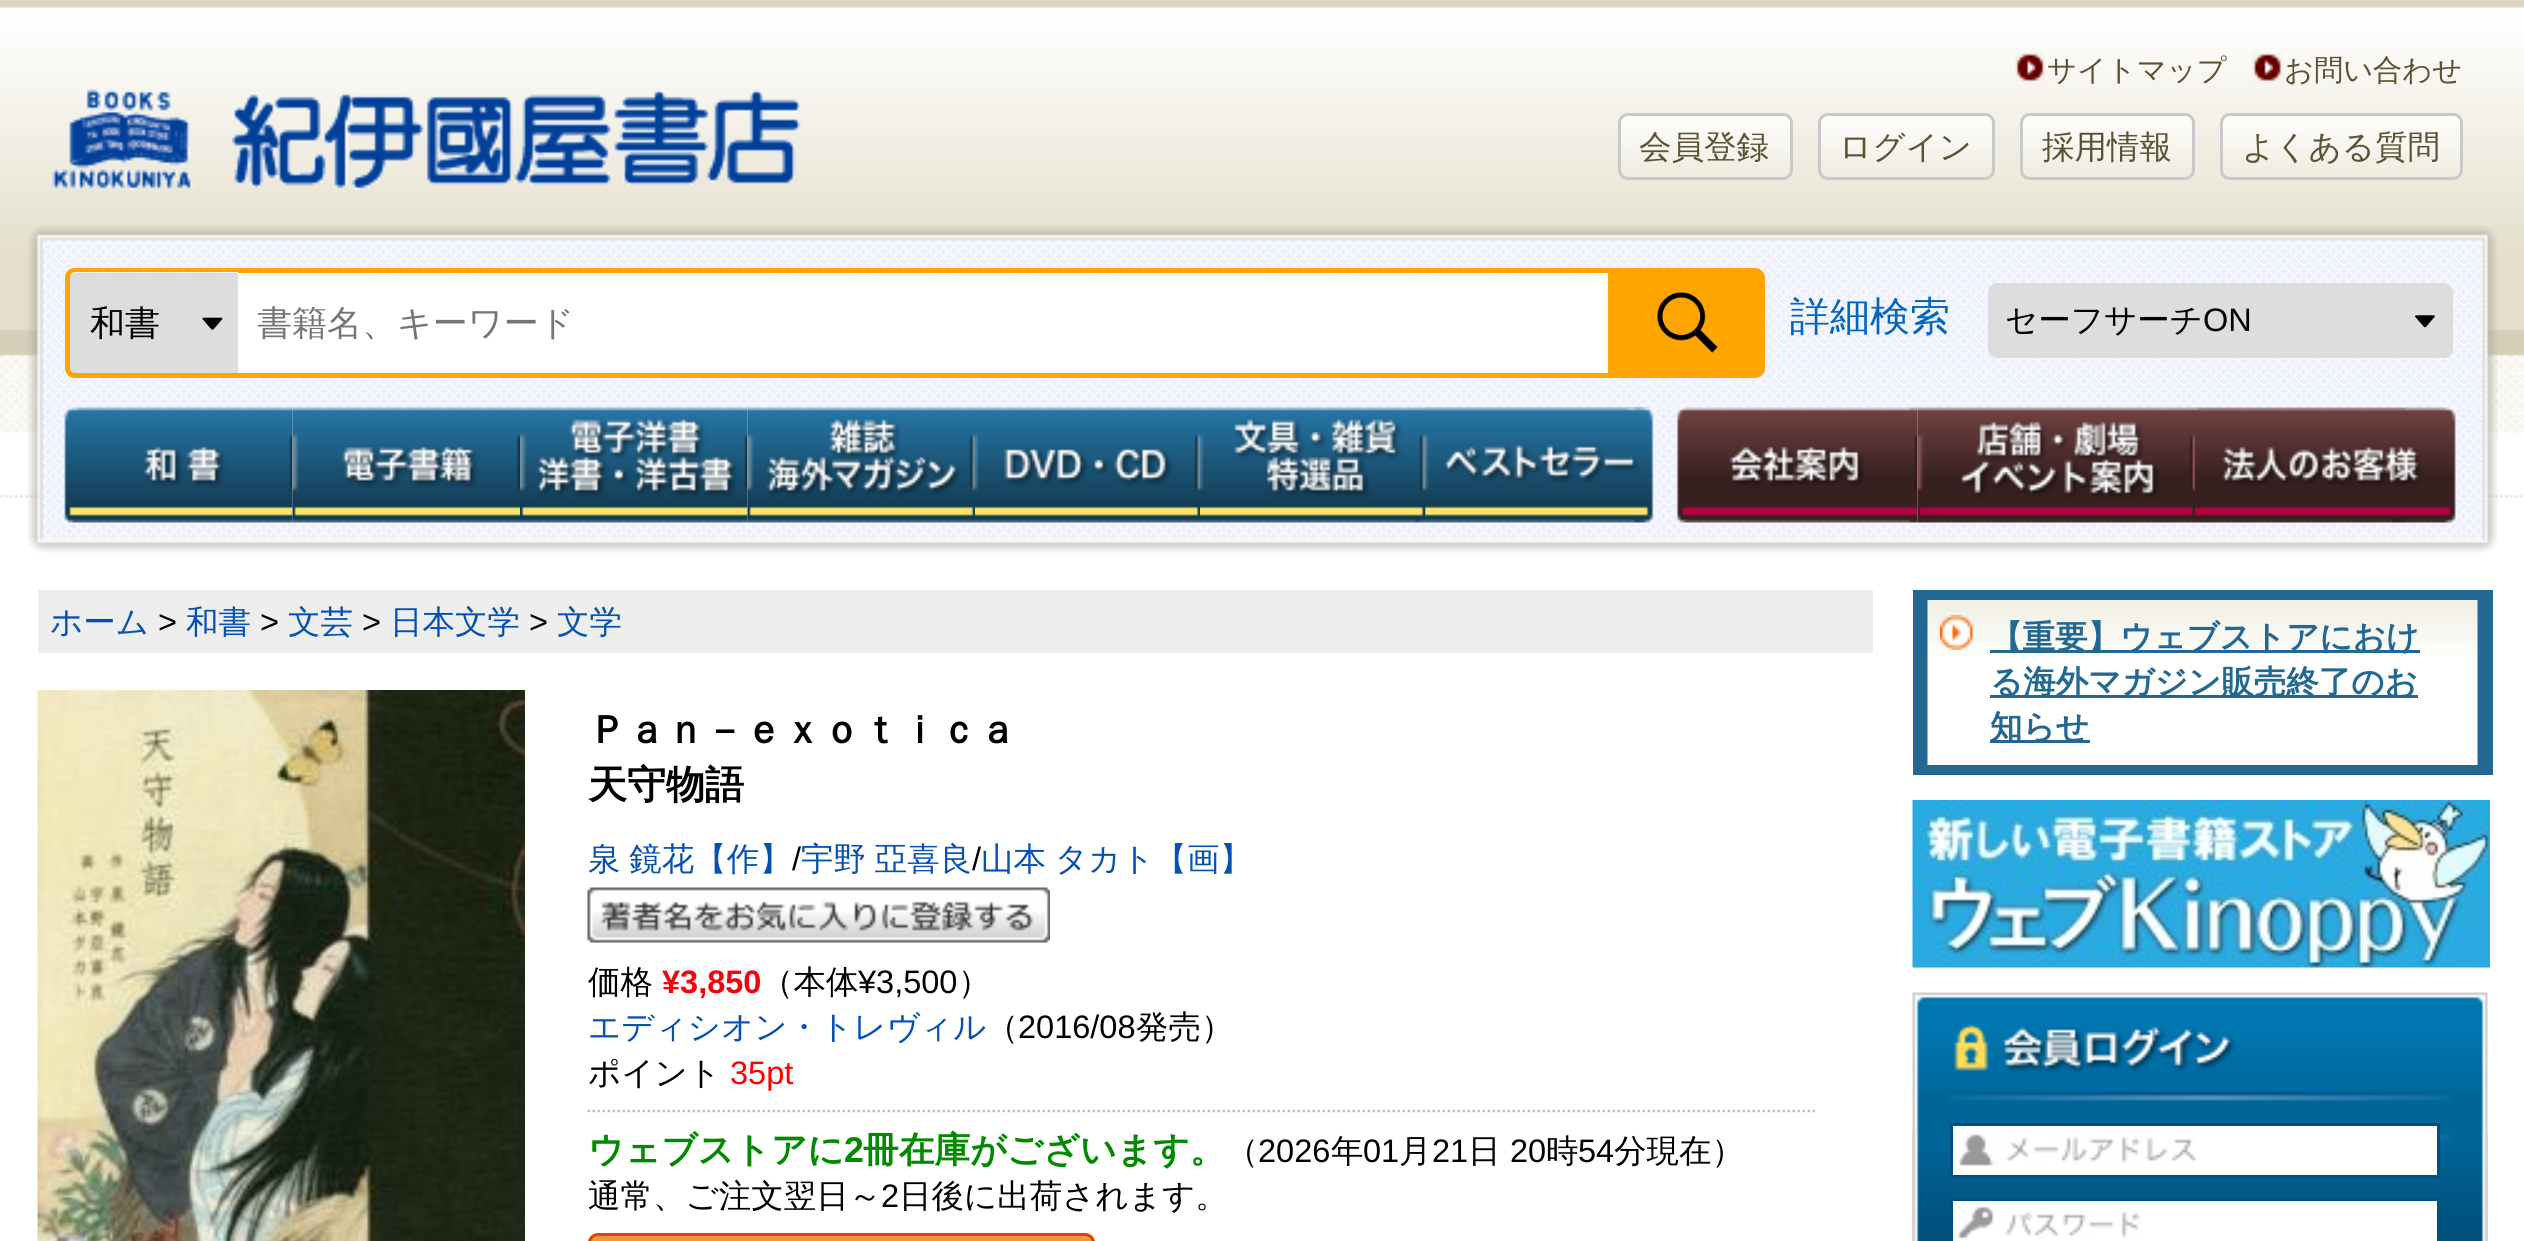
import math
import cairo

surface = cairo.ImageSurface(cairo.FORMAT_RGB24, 2524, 1241)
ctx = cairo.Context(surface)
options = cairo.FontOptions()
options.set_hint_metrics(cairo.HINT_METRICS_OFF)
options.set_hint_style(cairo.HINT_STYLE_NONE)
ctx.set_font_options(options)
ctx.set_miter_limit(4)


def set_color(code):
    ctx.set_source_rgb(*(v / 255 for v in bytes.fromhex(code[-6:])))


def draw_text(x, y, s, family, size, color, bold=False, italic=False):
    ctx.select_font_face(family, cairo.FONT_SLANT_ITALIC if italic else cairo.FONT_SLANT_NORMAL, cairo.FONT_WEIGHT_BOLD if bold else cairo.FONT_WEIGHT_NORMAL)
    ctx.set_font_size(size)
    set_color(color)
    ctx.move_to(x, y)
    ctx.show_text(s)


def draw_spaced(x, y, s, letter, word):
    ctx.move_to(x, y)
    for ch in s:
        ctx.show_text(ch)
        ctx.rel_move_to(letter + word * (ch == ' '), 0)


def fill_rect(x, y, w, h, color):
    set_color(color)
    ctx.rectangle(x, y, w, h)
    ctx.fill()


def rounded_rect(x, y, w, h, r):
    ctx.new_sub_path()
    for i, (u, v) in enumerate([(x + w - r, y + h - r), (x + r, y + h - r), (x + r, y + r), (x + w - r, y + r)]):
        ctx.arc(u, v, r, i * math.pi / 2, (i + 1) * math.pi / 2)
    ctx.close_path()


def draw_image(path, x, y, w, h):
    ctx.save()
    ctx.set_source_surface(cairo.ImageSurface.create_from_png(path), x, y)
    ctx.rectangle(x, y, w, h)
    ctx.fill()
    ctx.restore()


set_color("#ffffff")
ctx.paint()
draw_image("assets/img1.png", 0, 0, 2524, 498)
draw_image("assets/img2.png", 2015, 52, 30, 31)
draw_text(2047, 80, "サイトマップ", "WenQuanYi Zen Hei Medium", 29.25, "#595233")
draw_image("assets/img3.png", 2252, 52, 31, 31)
draw_text(2284, 80, "お問い合わせ", "WenQuanYi Zen Hei Medium", 29.25, "#595233")
draw_image("assets/img4.png", 52, 89, 749, 102)
ctx.save()
rounded_rect(1618, 113, 175, 67, 10)
ctx.clip()
gradient = cairo.LinearGradient(1705, 115, 1705, 178)
gradient.add_color_stop_rgba(0, 1, 1, 1, 1)
gradient.add_color_stop_rgba(1, 0.933, 0.922, 0.871, 1)
ctx.set_source(gradient)
ctx.rectangle(1618, 115, 175, 63)
ctx.fill()
ctx.restore()
rounded_rect(1619.5, 114.5, 172, 64, 8.5)
set_color("#c9c9c9")
ctx.set_line_width(3)
ctx.stroke()
draw_text(1639, 158, "会員登録", "WenQuanYi Zen Hei Medium", 32.5, "#595233")
ctx.save()
rounded_rect(1818, 113, 177, 67, 10)
ctx.clip()
gradient = cairo.LinearGradient(1906, 115, 1906, 178)
gradient.add_color_stop_rgba(0, 1, 1, 1, 1)
gradient.add_color_stop_rgba(1, 0.933, 0.922, 0.871, 1)
ctx.set_source(gradient)
ctx.rectangle(1818, 115, 177, 63)
ctx.fill()
ctx.restore()
rounded_rect(1819.5, 114.5, 174, 64, 8.5)
set_color("#c9c9c9")
ctx.stroke()
draw_text(1839, 158, "ログイン", "WenQuanYi Zen Hei Medium", 32.5, "#595233")
ctx.save()
rounded_rect(2020, 113, 175, 67, 10)
ctx.clip()
gradient = cairo.LinearGradient(2108, 115, 2108, 178)
gradient.add_color_stop_rgba(0, 1, 1, 1, 1)
gradient.add_color_stop_rgba(1, 0.933, 0.922, 0.871, 1)
ctx.set_source(gradient)
ctx.rectangle(2020, 115, 175, 63)
ctx.fill()
ctx.restore()
rounded_rect(2021.5, 114.5, 172, 64, 8.5)
set_color("#c9c9c9")
ctx.stroke()
draw_text(2042, 158, "採用情報", "WenQuanYi Zen Hei Medium", 32.5, "#595233")
ctx.save()
rounded_rect(2220, 113, 243, 67, 10)
ctx.clip()
gradient = cairo.LinearGradient(2341, 115, 2341, 178)
gradient.add_color_stop_rgba(0, 1, 1, 1, 1)
gradient.add_color_stop_rgba(1, 0.933, 0.922, 0.871, 1)
ctx.set_source(gradient)
ctx.rectangle(2220, 115, 243, 63)
ctx.fill()
ctx.restore()
rounded_rect(2221.5, 114.5, 240, 64, 8.5)
set_color("#c9c9c9")
ctx.stroke()
draw_text(2242, 158, "よくある質問", "WenQuanYi Zen Hei Medium", 32.5, "#595233")
draw_image("assets/img5.png", 27, 225, 2471, 183)
set_color("#ffa500")
ctx.set_fill_rule(cairo.FILL_RULE_EVEN_ODD)
ctx.new_path()
ctx.move_to(75, 268)
ctx.line_to(238, 268)
ctx.line_to(238, 378)
ctx.line_to(75, 378)
ctx.curve_to(69, 378, 65, 373, 65, 368)
ctx.line_to(65, 278)
ctx.curve_to(65, 272, 69, 268, 75, 268)
ctx.close_path()
ctx.move_to(75, 272)
ctx.line_to(238, 272)
ctx.line_to(238, 372)
ctx.line_to(75, 372)
ctx.curve_to(72, 372, 70, 370, 70, 368)
ctx.line_to(70, 278)
ctx.curve_to(70, 275, 72, 272, 75, 272)
ctx.close_path()
ctx.fill()
set_color("#dddddd")
ctx.new_path()
ctx.move_to(75, 273)
ctx.line_to(238, 273)
ctx.line_to(238, 373)
ctx.line_to(75, 373)
ctx.curve_to(72, 373, 70, 371, 70, 368)
ctx.line_to(70, 278)
ctx.curve_to(70, 275, 72, 273, 75, 273)
ctx.close_path()
ctx.fill()
draw_image("assets/img6.png", 202, 317, 21, 13)
draw_text(90, 335, "和書", "WenQuanYi Zen Hei Medium", 35, "#000000")
fill_rect(238, 268, 1370, 5, "#ffa500")
fill_rect(238, 373, 1370, 5, "#ffa500")
fill_rect(238, 273, 1370, 100, "#ffffff")
ctx.save()
ctx.set_fill_rule(cairo.FILL_RULE_WINDING)
ctx.rectangle(258, 303, 1330, 45)
ctx.clip()
draw_text(257, 335, "書籍名、キーワード", "WenQuanYi Zen Hei Medium", 35, "#757575")
ctx.restore()
ctx.new_path()
ctx.move_to(1610.5, 270.5)
ctx.line_to(1755, 270.5)
ctx.curve_to(1759, 270.5, 1762.5, 274, 1762.5, 278)
ctx.line_to(1762.5, 368)
ctx.curve_to(1762.5, 372, 1759, 375.5, 1755, 375.5)
ctx.line_to(1610.5, 375.5)
ctx.close_path()
set_color("#ffa500")
ctx.set_line_width(5)
ctx.stroke()
fill_rect(1613, 273, 147, 100, "#ffa500")
draw_image("assets/img7.png", 1657, 292, 61, 61)
draw_text(1790, 330, "詳細検索", "WenQuanYi Zen Hei Medium", 40, "#0066c0")
set_color("#dddddd")
rounded_rect(1988, 283, 465, 75, 10)
ctx.fill()
draw_image("assets/img8.png", 2415, 315, 20, 13)
rounded_rect(1989.5, 284.5, 462, 72, 8.5)
ctx.set_line_width(3)
ctx.stroke()
draw_text(2005, 331, "セーフサーチ", "WenQuanYi Zen Hei Medium", 32.5, "#000000")
draw_text(2203, 331, "ON", "Liberation Sans", 32.5, "#000000")
draw_image("assets/img9.png", 27, 407, 2471, 146)
draw_image("assets/img10.png", 64, 407, 229, 116)
draw_image("assets/img11.png", 292, 407, 228, 116)
draw_image("assets/img12.png", 520, 407, 228, 116)
draw_image("assets/img13.png", 747, 407, 228, 116)
draw_image("assets/img14.png", 975, 407, 225, 116)
draw_image("assets/img15.png", 1200, 407, 225, 116)
draw_image("assets/img16.png", 1425, 407, 229, 116)
draw_image("assets/img17.png", 1676, 407, 242, 116)
draw_image("assets/img18.png", 1917, 407, 278, 116)
draw_image("assets/img19.png", 2195, 407, 261, 116)
fill_rect(38, 590, 1835, 63, "#eeeeee")
draw_text(50, 633, "ホーム", "WenQuanYi Zen Hei Medium", 32.5, "#0551b1")
draw_text(158, 633, ">", "Liberation Sans", 32.5, "#000000")
draw_text(186, 633, "和書", "WenQuanYi Zen Hei Medium", 32.5, "#0551b1")
draw_text(260, 633, ">", "Liberation Sans", 32.5, "#000000")
draw_text(288, 633, "文芸", "WenQuanYi Zen Hei Medium", 32.5, "#0551b1")
draw_text(362, 633, ">", "Liberation Sans", 32.5, "#000000")
draw_text(390, 633, "日本文学", "WenQuanYi Zen Hei Medium", 32.5, "#0551b1")
draw_text(529, 633, ">", "Liberation Sans", 32.5, "#000000")
draw_text(557, 633, "文学", "WenQuanYi Zen Hei Medium", 32.5, "#0551b1")
draw_image("assets/img20.png", 37, 690, 488, 551)
draw_text(588, 743, "Ｐａｎ－ｅｘｏｔｉｃａ", "WenQuanYi Zen Hei", 39, "#000000", bold=True)
draw_text(588, 798, "天守物語", "WenQuanYi Zen Hei", 39, "#000000", bold=True)
ctx.select_font_face("WenQuanYi Zen Hei Medium")
ctx.set_font_size(32.5)
set_color("#0551b1")
draw_spaced(588, 870, "泉 鏡花【作】", 0, -1)
draw_text(792, 870, "/", "Liberation Sans", 32.5, "#000000")
ctx.select_font_face("WenQuanYi Zen Hei Medium")
set_color("#0551b1")
draw_spaced(801, 870, "宇野 亞喜良", 0, -1)
draw_text(972, 870, "/", "Liberation Sans", 32.5, "#000000")
ctx.select_font_face("WenQuanYi Zen Hei Medium")
set_color("#0551b1")
draw_spaced(981, 870, "山本 タカト【画】", 0, -1)
draw_image("assets/img21.png", 587, 887, 463, 56)
draw_text(588, 993, "価格", "WenQuanYi Zen Hei Medium", 32.5, "#000000")
draw_text(662, 993, "¥3,850", "Liberation Sans", 32.5, "#f4030a", bold=True)
draw_text(761, 993, "（本体", "WenQuanYi Zen Hei Medium", 32.5, "#000000")
draw_text(858, 993, "¥3,500", "Liberation Sans", 32.5, "#000000")
draw_text(958, 993, "）", "WenQuanYi Zen Hei Medium", 32.5, "#000000")
draw_text(588, 1038, "エディシオン・トレヴィル", "WenQuanYi Zen Hei Medium", 32.5, "#0551b1")
draw_text(986, 1038, "（", "WenQuanYi Zen Hei Medium", 32.5, "#000000")
draw_text(1018, 1038, "2016/08", "Liberation Sans", 32.5, "#000000")
draw_text(1136, 1038, "発売）", "WenQuanYi Zen Hei Medium", 32.5, "#000000")
draw_text(588, 1084, "ポイント", "WenQuanYi Zen Hei Medium", 32.5, "#000000")
draw_text(730, 1084, "35pt", "Liberation Sans", 32.5, "#ff0000")
ctx.new_path()
ctx.move_to(587.5, 1111)
ctx.line_to(1817.5, 1111)
set_color("#c1c1c1")
ctx.set_line_width(2.5)
ctx.set_dash([2.5, 2.5])
ctx.stroke()
draw_text(588, 1162, "ウェブストアに", "WenQuanYi Zen Hei", 35.75, "#008a00", bold=True)
draw_text(844, 1162, "2", "Liberation Sans", 35.75, "#008a00", bold=True)
draw_text(863, 1162, "冊在庫がございます。", "WenQuanYi Zen Hei", 35.75, "#008a00", bold=True)
draw_text(1226, 1162, "（", "WenQuanYi Zen Hei Medium", 32.5, "#000000")
draw_text(1258, 1162, "2026", "Liberation Sans", 32.5, "#000000")
draw_text(1331, 1162, "年", "WenQuanYi Zen Hei Medium", 32.5, "#000000")
draw_text(1363, 1162, "01", "Liberation Sans", 32.5, "#000000")
draw_text(1399, 1162, "月", "WenQuanYi Zen Hei Medium", 32.5, "#000000")
draw_text(1432, 1162, "21", "Liberation Sans", 32.5, "#000000")
draw_text(1468, 1162, "日", "WenQuanYi Zen Hei Medium", 32.5, "#000000")
draw_text(1510, 1162, "20", "Liberation Sans", 32.5, "#000000")
draw_text(1546, 1162, "時", "WenQuanYi Zen Hei Medium", 32.5, "#000000")
draw_text(1578, 1162, "54", "Liberation Sans", 32.5, "#000000")
draw_text(1614, 1162, "分現在）", "WenQuanYi Zen Hei Medium", 32.5, "#000000")
draw_text(588, 1207, "通常、ご注文翌日～", "WenQuanYi Zen Hei Medium", 32.5, "#000000")
draw_text(881, 1207, "2", "Liberation Sans", 32.5, "#000000")
draw_text(899, 1207, "日後に出荷されます。", "WenQuanYi Zen Hei Medium", 32.5, "#000000")
ctx.save()
ctx.set_fill_rule(cairo.FILL_RULE_WINDING)
rounded_rect(588, 1233, 507, 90, 10)
ctx.clip()
gradient = cairo.LinearGradient(841, 1235, 841, 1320)
gradient.add_color_stop_rgba(0, 0.988, 0.592, 0.278, 1)
gradient.add_color_stop_rgba(1, 0.867, 0.271, 0.008, 1)
ctx.set_source(gradient)
ctx.rectangle(588, 1235, 507, 6)
ctx.fill()
ctx.restore()
rounded_rect(589.5, 1234.5, 504, 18, 8.5)
set_color("#dd4502")
ctx.set_line_width(3)
ctx.set_dash([])
ctx.stroke()
fill_rect(1913, 590, 580, 185, "#226892")
draw_image("assets/img22.png", 1927, 600, 551, 165)
draw_image("assets/img23.png", 1940, 615, 33, 35)
fill_rect(1990, 650, 430, 3, "#226892")
draw_text(1990, 648, "【重要】ウェブストアにおけ", "WenQuanYi Zen Hei", 32.5, "#226892", bold=True)
fill_rect(1990, 695, 428, 3, "#226892")
draw_text(1990, 693, "る海外マガジン販売終了のお", "WenQuanYi Zen Hei", 32.5, "#226892", bold=True)
fill_rect(1990, 740, 100, 3, "#226892")
draw_text(1990, 738, "知らせ", "WenQuanYi Zen Hei", 32.5, "#226892", bold=True)
draw_image("assets/img24.png", 1912, 800, 578, 168)
draw_image("assets/img25.png", 1912, 992, 576, 249)
draw_image("assets/img26.png", 1954, 1024, 281, 49)
draw_image("assets/img27.png", 1912, 1132, 576, 109)
fill_rect(1953, 1126, 484, 49, "#ffffff")
draw_image("assets/img28.png", 1959, 1134, 237, 32)
ctx.rectangle(1951.5, 1124.5, 487, 52)
set_color("#01517c")
ctx.stroke()
fill_rect(1953, 1201, 484, 40, "#ffffff")
draw_image("assets/img29.png", 1957, 1206, 184, 33)
ctx.rectangle(1951.5, 1199.5, 487, 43)
set_color("#01517c")
ctx.stroke()
surface.write_to_png("output.png")
